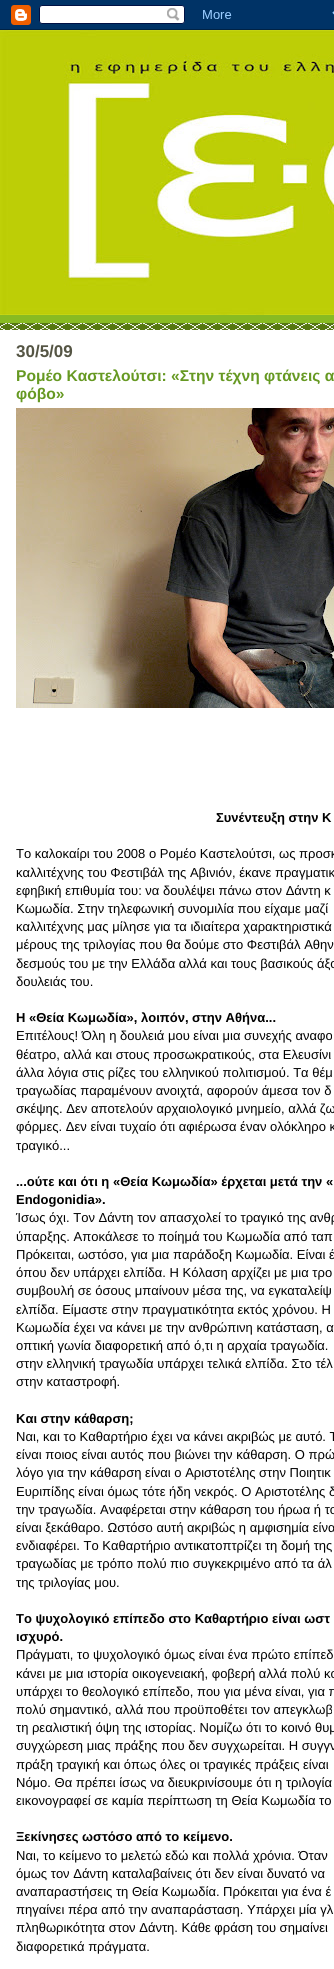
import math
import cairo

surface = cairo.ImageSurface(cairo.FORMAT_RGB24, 334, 1969)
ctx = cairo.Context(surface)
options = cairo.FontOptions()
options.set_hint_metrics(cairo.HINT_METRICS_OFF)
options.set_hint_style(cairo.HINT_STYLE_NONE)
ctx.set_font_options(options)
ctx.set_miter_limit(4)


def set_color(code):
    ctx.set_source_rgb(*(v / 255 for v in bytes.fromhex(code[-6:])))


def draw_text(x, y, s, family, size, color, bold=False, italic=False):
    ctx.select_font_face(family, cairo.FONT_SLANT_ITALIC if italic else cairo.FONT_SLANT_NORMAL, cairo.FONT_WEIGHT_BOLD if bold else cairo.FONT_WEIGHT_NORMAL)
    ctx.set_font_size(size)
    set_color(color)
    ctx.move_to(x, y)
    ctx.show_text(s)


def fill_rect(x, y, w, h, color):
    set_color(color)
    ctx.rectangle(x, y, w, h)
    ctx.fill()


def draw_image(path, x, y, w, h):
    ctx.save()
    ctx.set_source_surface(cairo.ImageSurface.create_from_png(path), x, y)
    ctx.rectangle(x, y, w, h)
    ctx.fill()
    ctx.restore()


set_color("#ffffff")
ctx.paint()
draw_image("assets/img1.png", 0, 0, 334, 30)
fill_rect(0, 315, 334, 8, "#88bb22")
draw_image("assets/img2.png", 0, 323, 334, 7)
draw_image("assets/img3.png", 0, 30, 334, 285)
draw_text(16, 357, "30/5/09", "Liberation Sans", 17, "#555544", bold=True)
draw_text(16, 381, "Ρομέο Καστελούτσι: «Στην τέχνη φτάνεις α", "Liberation Sans", 15.6, "#669922", bold=True)
draw_text(16, 399, "φόβο»", "Liberation Sans", 15.6, "#669922", bold=True)
draw_image("assets/img4.png", 16, 408, 318, 300)
draw_text(216, 822, "Συνέντευξη στην Κ", "Liberation Sans", 13, "#000000", bold=True)
draw_text(16, 858, "Το καλοκαίρι του 2008 ο Ρομέο Καστελούτσι, ως προσκ", "Liberation Sans", 13, "#000000")
draw_text(16, 877, "καλλιτέχνης του Φεστιβάλ της Αβινιόν, έκανε πραγματικ", "Liberation Sans", 13, "#000000")
draw_text(16, 895, "εφηβική επιθυμία του: να δουλέψει πάνω στον Δάντη κ", "Liberation Sans", 13, "#000000")
draw_text(16, 913, "Κωμωδία. Στην τηλεφωνική συνομιλία που είχαμε μαζί", "Liberation Sans", 13, "#000000")
draw_text(16, 931, "καλλιτέχνης μας μίλησε για τα ιδιαίτερα χαρακτηριστικά", "Liberation Sans", 13, "#000000")
draw_text(16, 949, "μέρους της τριλογίας που θα δούμε στο Φεστιβάλ Αθην", "Liberation Sans", 13, "#000000")
draw_text(16, 968, "δεσμούς του με την Ελλάδα αλλά και τους βασικούς άξο", "Liberation Sans", 13, "#000000")
draw_text(16, 986, "δουλειάς του.", "Liberation Sans", 13, "#000000")
draw_text(16, 1022, "Η «Θεία Κωμωδία», λοιπόν, στην Αθήνα...", "Liberation Sans", 13, "#000000", bold=True)
draw_text(16, 1040, "Επιτέλους! Όλη η δουλειά μου είναι μια συνεχής αναφο", "Liberation Sans", 13, "#000000")
draw_text(16, 1059, "θέατρο, αλλά και στους προσωκρατικούς, στα Ελευσίνι", "Liberation Sans", 13, "#000000")
draw_text(16, 1077, "άλλα λόγια στις ρίζες του ελληνικού πολιτισμού. Τα θέμ", "Liberation Sans", 13, "#000000")
draw_text(16, 1095, "τραγωδίας παραμένουν ανοιχτά, αφορούν άμεσα τον δ", "Liberation Sans", 13, "#000000")
draw_text(16, 1113, "σκέψης. Δεν αποτελούν αρχαιολογικό μνημείο, αλλά ζω", "Liberation Sans", 13, "#000000")
draw_text(16, 1131, "φόρμες. Δεν είναι τυχαίο ότι αφιέρωσα έναν ολόκληρο κ", "Liberation Sans", 13, "#000000")
draw_text(16, 1150, "τραγικό...", "Liberation Sans", 13, "#000000")
draw_text(16, 1186, "...ούτε και ότι η «Θεία Κωμωδία» έρχεται μετά την «", "Liberation Sans", 13, "#000000", bold=True)
draw_text(16, 1204, "Endogonidia».", "Liberation Sans", 13, "#000000", bold=True)
draw_text(16, 1222, "Ίσως όχι. Τον Δάντη τον απασχολεί το τραγικό της ανθρ", "Liberation Sans", 13, "#000000")
draw_text(16, 1241, "ύπαρξης. Αποκάλεσε το ποίημά του Κωμωδία από ταπ", "Liberation Sans", 13, "#000000")
draw_text(16, 1259, "Πρόκειται, ωστόσο, για μια παράδοξη Κωμωδία. Είναι έ", "Liberation Sans", 13, "#000000")
draw_text(16, 1277, "όπου δεν υπάρχει ελπίδα. Η Κόλαση αρχίζει με μια τρο", "Liberation Sans", 13, "#000000")
draw_text(16, 1295, "συμβουλή σε όσους μπαίνουν μέσα της, να εγκαταλείψ", "Liberation Sans", 13, "#000000")
draw_text(16, 1314, "ελπίδα. Είμαστε στην πραγματικότητα εκτός χρόνου. Η", "Liberation Sans", 13, "#000000")
draw_text(16, 1332, "Κωμωδία έχει να κάνει με την ανθρώπινη κατάσταση, α", "Liberation Sans", 13, "#000000")
draw_text(16, 1350, "οπτική γωνία διαφορετική από ό,τι η αρχαία τραγωδία.", "Liberation Sans", 13, "#000000")
draw_text(16, 1368, "στην ελληνική τραγωδία υπάρχει τελικά ελπίδα. Στο τέλ", "Liberation Sans", 13, "#000000")
draw_text(16, 1386, "στην καταστροφή.", "Liberation Sans", 13, "#000000")
draw_text(16, 1423, "Και στην κάθαρση;", "Liberation Sans", 13, "#000000", bold=True)
draw_text(16, 1441, "Ναι, και το Καθαρτήριο έχει να κάνει ακριβώς με αυτό. Τ", "Liberation Sans", 13, "#000000")
draw_text(16, 1459, "είναι ποιος είναι αυτός που βιώνει την κάθαρση. Ο πρώ", "Liberation Sans", 13, "#000000")
draw_text(16, 1477, "λόγο για την κάθαρση είναι ο Αριστοτέλης στην Ποιητικ", "Liberation Sans", 13, "#000000")
draw_text(16, 1496, "Ευριπίδης είναι όμως τότε ήδη νεκρός. Ο Αριστοτέλης δ", "Liberation Sans", 13, "#000000")
draw_text(16, 1514, "την τραγωδία. Αναφέρεται στην κάθαρση του ήρωα ή το", "Liberation Sans", 13, "#000000")
draw_text(16, 1532, "είναι ξεκάθαρο. Ωστόσο αυτή ακριβώς η αμφισημία είνα", "Liberation Sans", 13, "#000000")
draw_text(16, 1550, "ενδιαφέρει. Το Καθαρτήριο αντικατοπτρίζει τη δομή της", "Liberation Sans", 13, "#000000")
draw_text(16, 1568, "τραγωδίας με τρόπο πολύ πιο συγκεκριμένο από τα άλ", "Liberation Sans", 13, "#000000")
draw_text(16, 1587, "της τριλογίας μου.", "Liberation Sans", 13, "#000000")
draw_text(16, 1623, "Το ψυχολογικό επίπεδο στο Καθαρτήριο είναι ωστ", "Liberation Sans", 13, "#000000", bold=True)
draw_text(16, 1641, "ισχυρό.", "Liberation Sans", 13, "#000000", bold=True)
draw_text(16, 1659, "Πράγματι, το ψυχολογικό όμως είναι ένα πρώτο επίπεδ", "Liberation Sans", 13, "#000000")
draw_text(16, 1678, "κάνει με μια ιστορία οικογενειακή, φοβερή αλλά πολύ κο", "Liberation Sans", 13, "#000000")
draw_text(16, 1696, "υπάρχει το θεολογικό επίπεδο, που για μένα είναι, για π", "Liberation Sans", 13, "#000000")
draw_text(16, 1714, "πολύ σημαντικό, αλλά που προϋποθέτει τον απεγκλωβ", "Liberation Sans", 13, "#000000")
draw_text(16, 1732, "τη ρεαλιστική όψη της ιστορίας. Νομίζω ότι το κοινό θυμ", "Liberation Sans", 13, "#000000")
draw_text(16, 1750, "συγχώρεση μιας πράξης που δεν συγχωρείται. Η συγγν", "Liberation Sans", 13, "#000000")
draw_text(16, 1769, "πράξη τραγική και όπως όλες οι τραγικές πράξεις είναι", "Liberation Sans", 13, "#000000")
draw_text(16, 1787, "Νόμο. Θα πρέπει ίσως να διευκρινίσουμε ότι η τριλογία", "Liberation Sans", 13, "#000000")
draw_text(16, 1805, "εικονογραφεί σε καμία περίπτωση τη Θεία Κωμωδία το", "Liberation Sans", 13, "#000000")
draw_text(16, 1841, "Ξεκίνησες ωστόσο από το κείμενο.", "Liberation Sans", 13, "#000000", bold=True)
draw_text(16, 1860, "Ναι, το κείμενο το μελετώ εδώ και πολλά χρόνια. Όταν", "Liberation Sans", 13, "#000000")
draw_text(16, 1878, "όμως τον Δάντη καταλαβαίνεις ότι δεν είναι δυνατό να", "Liberation Sans", 13, "#000000")
draw_text(16, 1896, "αναπαραστήσεις τη Θεία Κωμωδία. Πρόκειται για ένα έ", "Liberation Sans", 13, "#000000")
draw_text(16, 1914, "πηγαίνει πέρα από την αναπαράσταση. Υπάρχει μία γλ", "Liberation Sans", 13, "#000000")
draw_text(16, 1932, "πληθωρικότητα στον Δάντη. Κάθε φράση του σημαίνει", "Liberation Sans", 13, "#000000")
draw_text(16, 1951, "διαφορετικά πράγματα.", "Liberation Sans", 13, "#000000")
surface.write_to_png("output.png")
